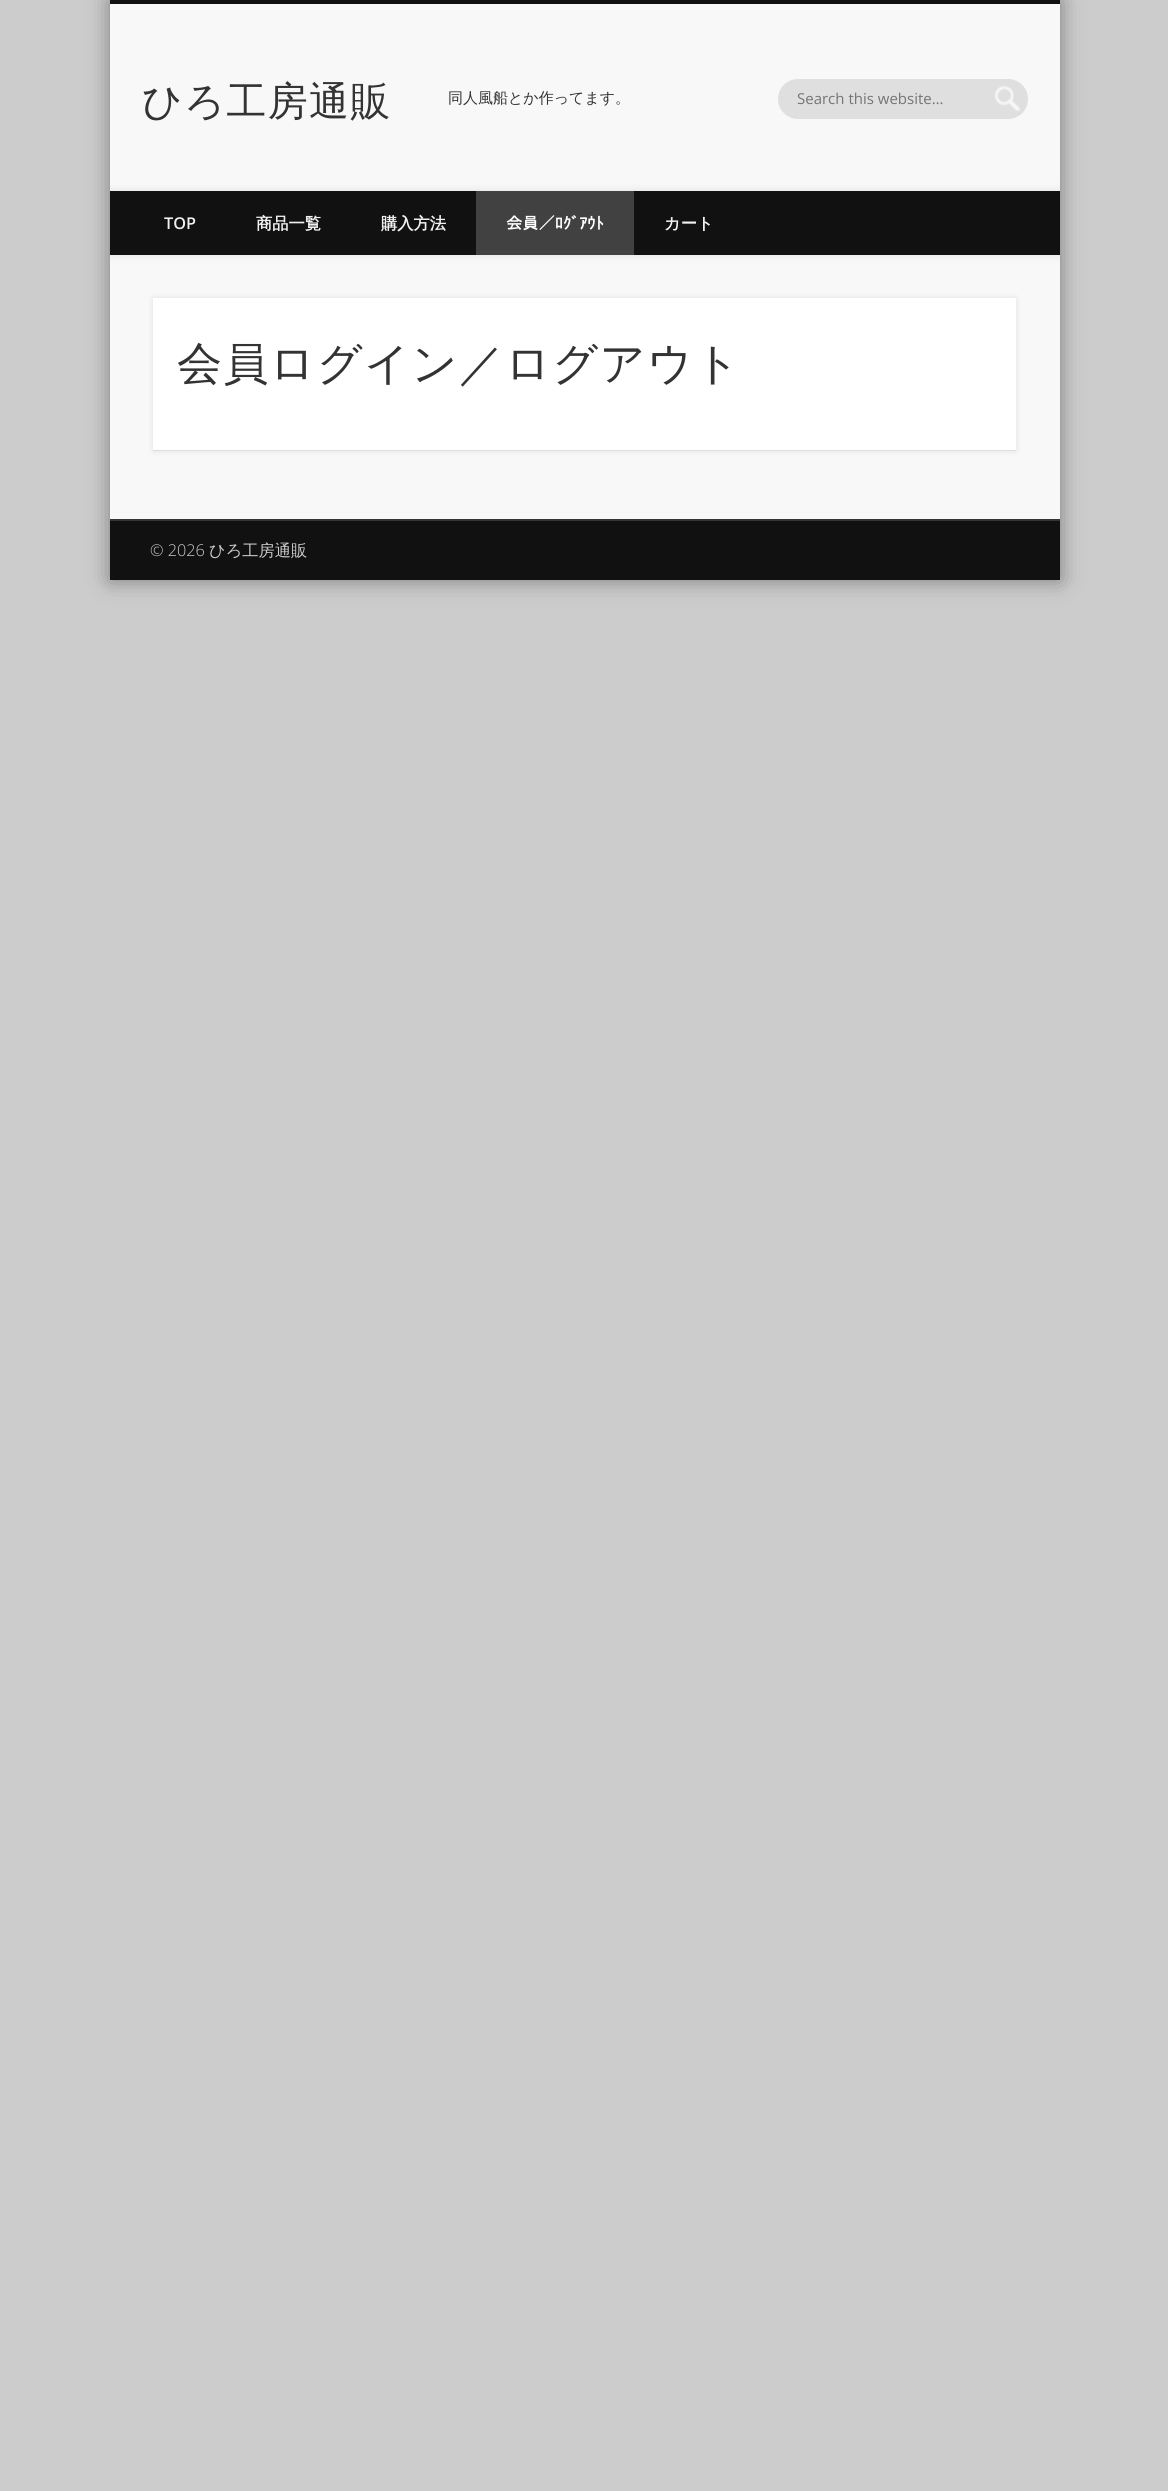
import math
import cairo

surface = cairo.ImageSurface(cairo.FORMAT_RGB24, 1168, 2491)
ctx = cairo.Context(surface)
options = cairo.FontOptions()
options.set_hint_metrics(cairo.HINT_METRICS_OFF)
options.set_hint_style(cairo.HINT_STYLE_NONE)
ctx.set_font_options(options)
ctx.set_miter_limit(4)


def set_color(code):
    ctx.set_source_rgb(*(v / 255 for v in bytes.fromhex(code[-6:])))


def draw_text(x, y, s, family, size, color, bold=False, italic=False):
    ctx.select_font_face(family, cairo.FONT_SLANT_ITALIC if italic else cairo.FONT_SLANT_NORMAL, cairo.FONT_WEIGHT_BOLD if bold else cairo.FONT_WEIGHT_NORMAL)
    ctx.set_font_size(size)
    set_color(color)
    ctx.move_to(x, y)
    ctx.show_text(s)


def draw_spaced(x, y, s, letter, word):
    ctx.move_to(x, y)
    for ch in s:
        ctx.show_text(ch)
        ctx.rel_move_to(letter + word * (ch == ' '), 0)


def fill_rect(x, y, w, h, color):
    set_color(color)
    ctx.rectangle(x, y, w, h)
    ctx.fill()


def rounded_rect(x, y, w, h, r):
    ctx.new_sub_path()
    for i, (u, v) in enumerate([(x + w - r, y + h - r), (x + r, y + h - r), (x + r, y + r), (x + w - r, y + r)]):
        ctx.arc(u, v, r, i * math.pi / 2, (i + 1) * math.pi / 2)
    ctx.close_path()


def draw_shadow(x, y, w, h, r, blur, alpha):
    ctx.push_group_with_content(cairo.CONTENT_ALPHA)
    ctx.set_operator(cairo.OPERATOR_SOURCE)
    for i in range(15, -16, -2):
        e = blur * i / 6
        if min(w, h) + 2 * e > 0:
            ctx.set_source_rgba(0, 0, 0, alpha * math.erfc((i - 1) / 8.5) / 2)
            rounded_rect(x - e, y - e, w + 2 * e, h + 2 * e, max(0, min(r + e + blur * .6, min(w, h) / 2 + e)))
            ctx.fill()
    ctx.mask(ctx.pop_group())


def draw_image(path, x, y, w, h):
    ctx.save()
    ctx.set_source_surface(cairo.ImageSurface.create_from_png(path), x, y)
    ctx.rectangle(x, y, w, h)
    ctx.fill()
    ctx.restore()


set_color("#cccccc")
ctx.paint()
set_color("#000000")
draw_shadow(110, 0, 950, 580, 0, 11, 0.4)
fill_rect(110, 4, 950, 515, "#f8f8f8")
fill_rect(110, 0, 950, 4, "#111111")
ctx.select_font_face("WenQuanYi Zen Hei Medium")
ctx.set_font_size(40)
set_color("#333333")
draw_spaced(142, 115, "ひろ工房通販", 1.25, 0)
draw_text(448, 103, "同人風船とか作ってます。", "WenQuanYi Zen Hei Medium", 15, "#333333")
set_color("#dfdfdf")
rounded_rect(778, 79, 250, 40, 20)
ctx.fill()
draw_image("assets/img1.png", 995, 86, 25, 25)
draw_text(797, 104, "Search this website…", "Open Sans", 15, "#757575")
ctx.save()
ctx.rectangle(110, 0, 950, 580)
ctx.clip()
set_color("#000000")
draw_shadow(110, 191, 950, 64, 0, 4.5, 0.1)
ctx.restore()
fill_rect(110, 191, 950, 64, "#111111")
draw_text(164, 229, "TOP", "Open Sans SemiBold", 16.25, "#f0f0f0")
draw_text(256, 229, "商品一覧", "WenQuanYi Zen Hei", 16.25, "#f0f0f0", bold=True)
draw_text(381, 229, "購入方法", "WenQuanYi Zen Hei", 16.25, "#f0f0f0", bold=True)
fill_rect(476, 191, 158, 64, "#414141")
draw_text(506, 229, "会員／ﾛｸﾞｱｳﾄ", "IPAPGothic", 16.25, "#ffffff", bold=True)
draw_text(664, 229, "カート", "WenQuanYi Zen Hei", 16.25, "#f0f0f0", bold=True)
set_color("#000000")
draw_shadow(153, 298, 863, 153, 0, 3, 0.1)
fill_rect(153, 298, 863, 152, "#ffffff")
fill_rect(153, 450, 863, 1, "#dedede")
ctx.select_font_face("WenQuanYi Zen Hei Medium")
ctx.set_font_size(45)
set_color("#333333")
draw_spaced(177, 379, "会員ログイン／ログアウト", 1.25, 0)
fill_rect(110, 519, 950, 2, "#343434")
fill_rect(110, 521, 950, 59, "#111111")
draw_text(150, 556, "© 2026", "Open Sans Light", 16.25, "#cccccc")
draw_text(209, 556, "ひろ工房通販", "WenQuanYi Zen Hei Medium", 16.25, "#cccccc")
surface.write_to_png("output.png")
